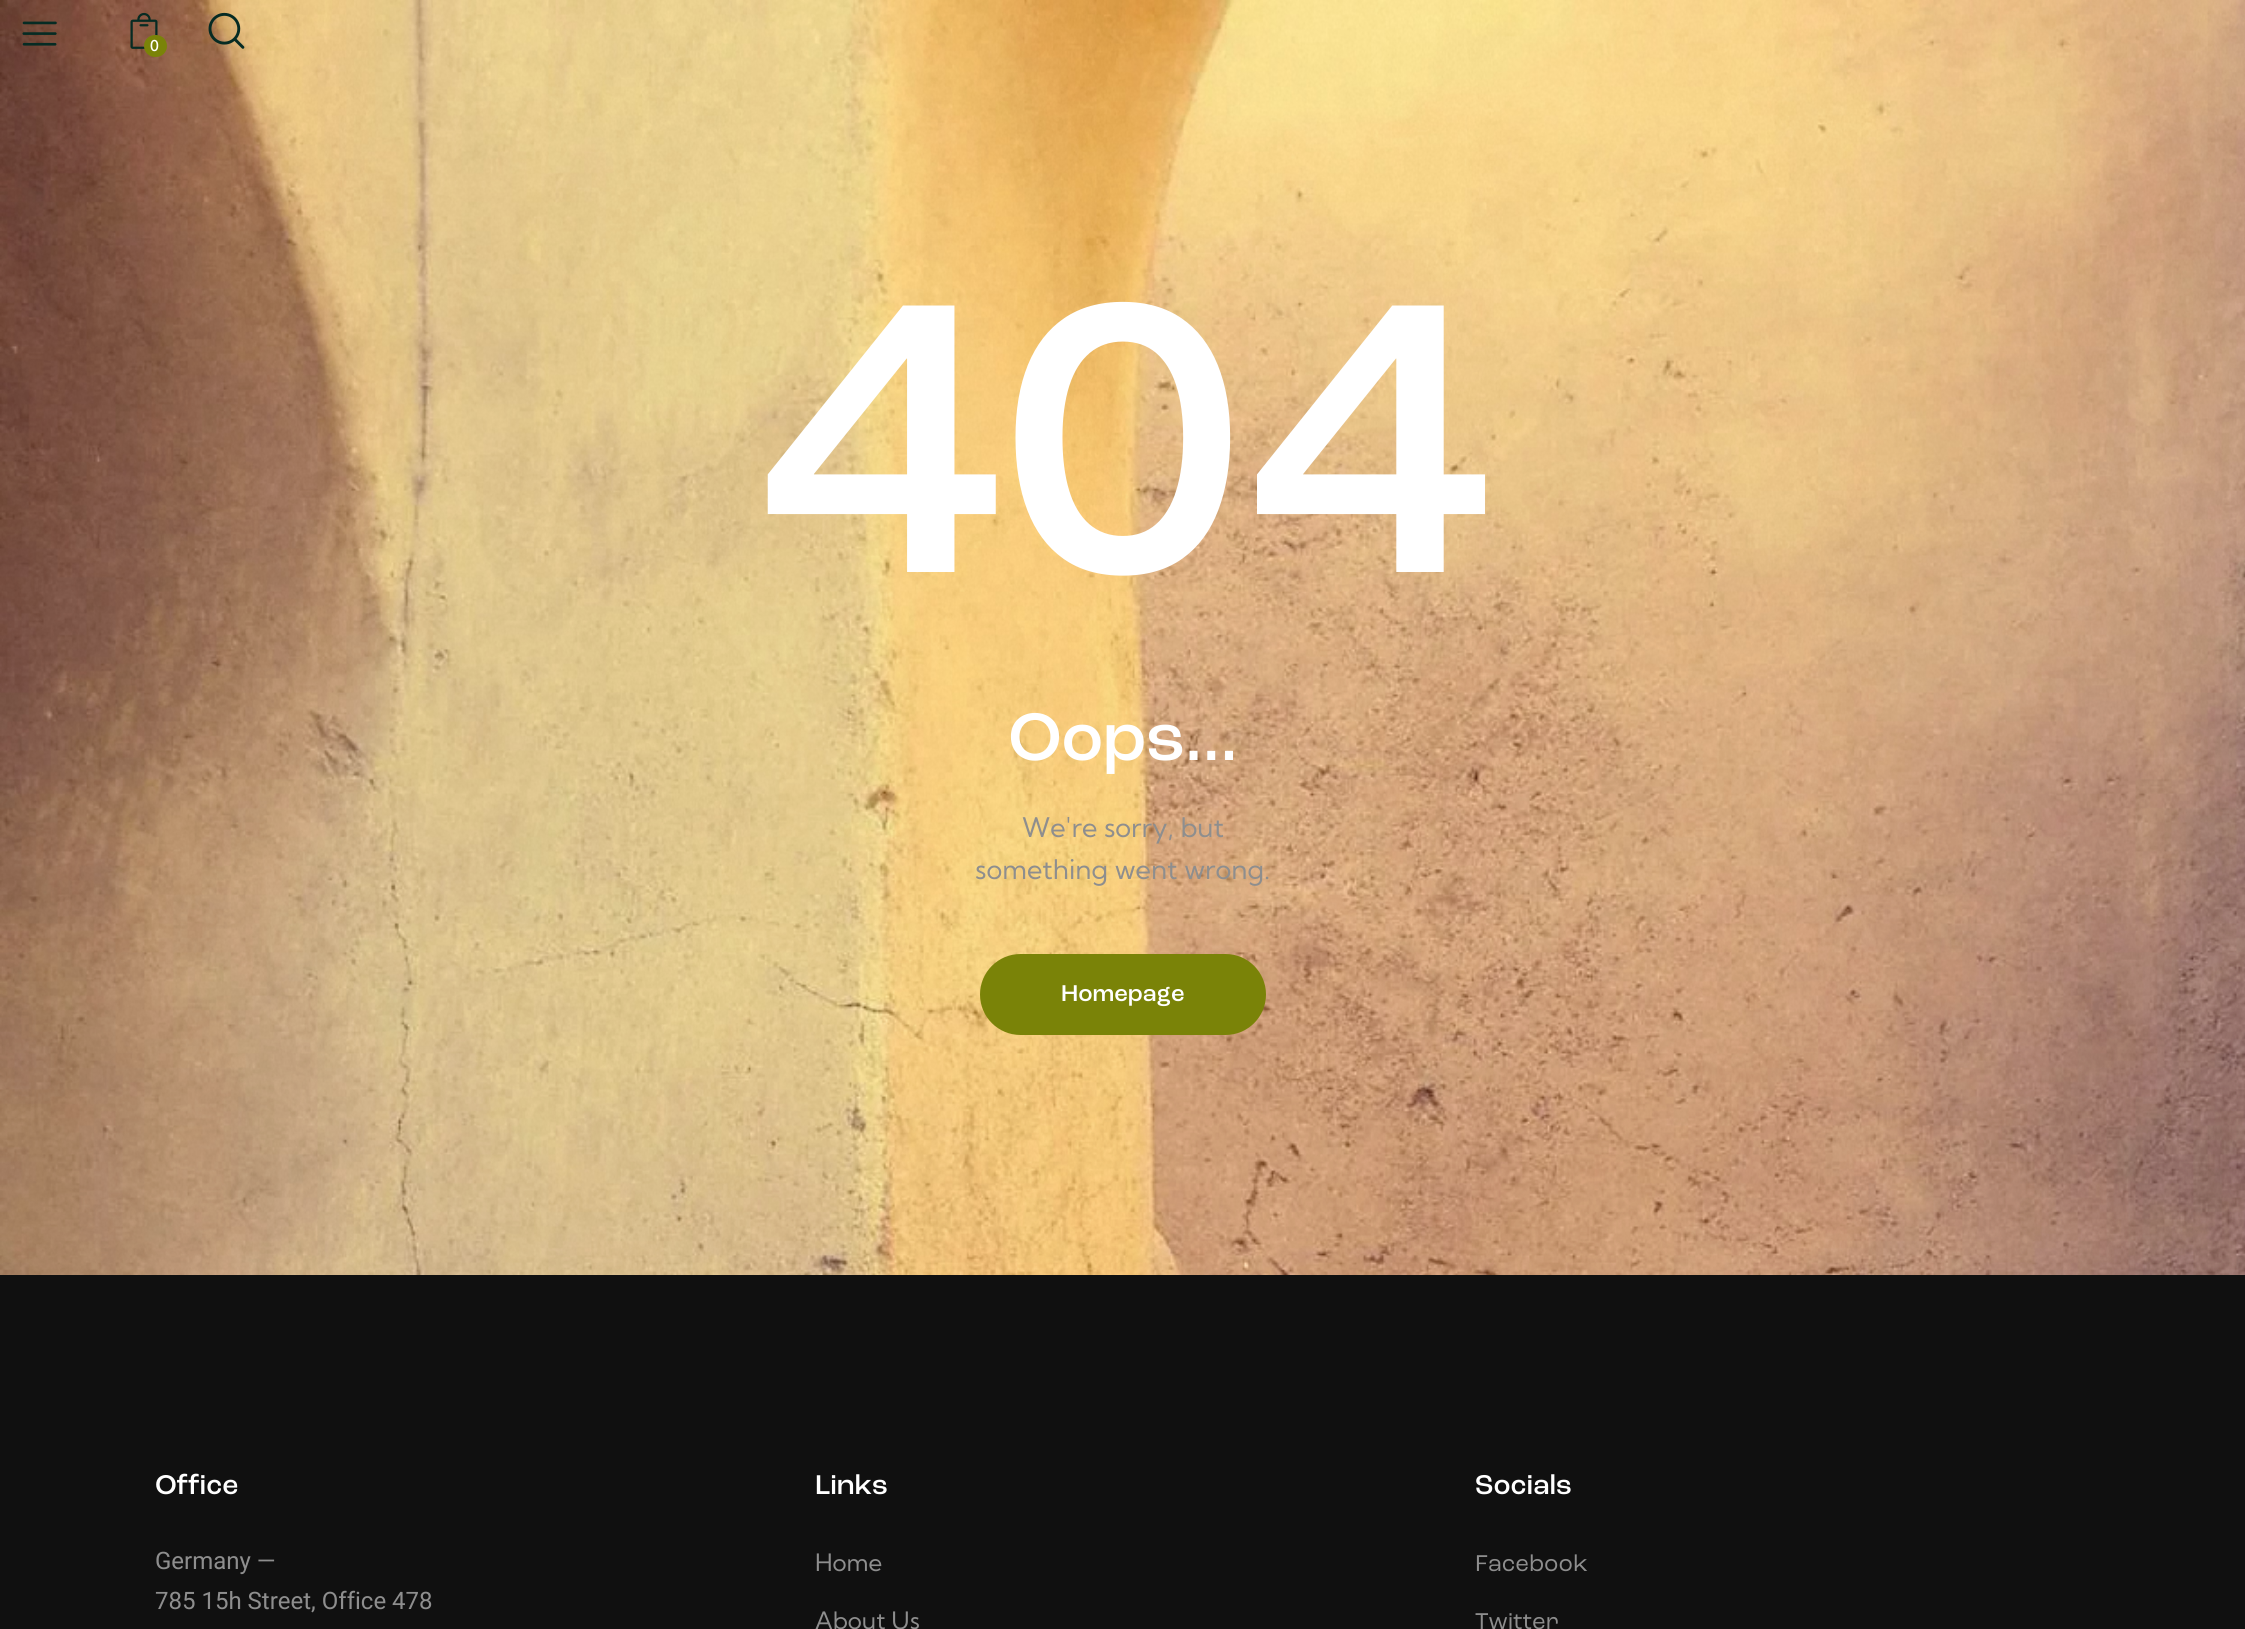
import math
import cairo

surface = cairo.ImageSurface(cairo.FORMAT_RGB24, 2245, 1629)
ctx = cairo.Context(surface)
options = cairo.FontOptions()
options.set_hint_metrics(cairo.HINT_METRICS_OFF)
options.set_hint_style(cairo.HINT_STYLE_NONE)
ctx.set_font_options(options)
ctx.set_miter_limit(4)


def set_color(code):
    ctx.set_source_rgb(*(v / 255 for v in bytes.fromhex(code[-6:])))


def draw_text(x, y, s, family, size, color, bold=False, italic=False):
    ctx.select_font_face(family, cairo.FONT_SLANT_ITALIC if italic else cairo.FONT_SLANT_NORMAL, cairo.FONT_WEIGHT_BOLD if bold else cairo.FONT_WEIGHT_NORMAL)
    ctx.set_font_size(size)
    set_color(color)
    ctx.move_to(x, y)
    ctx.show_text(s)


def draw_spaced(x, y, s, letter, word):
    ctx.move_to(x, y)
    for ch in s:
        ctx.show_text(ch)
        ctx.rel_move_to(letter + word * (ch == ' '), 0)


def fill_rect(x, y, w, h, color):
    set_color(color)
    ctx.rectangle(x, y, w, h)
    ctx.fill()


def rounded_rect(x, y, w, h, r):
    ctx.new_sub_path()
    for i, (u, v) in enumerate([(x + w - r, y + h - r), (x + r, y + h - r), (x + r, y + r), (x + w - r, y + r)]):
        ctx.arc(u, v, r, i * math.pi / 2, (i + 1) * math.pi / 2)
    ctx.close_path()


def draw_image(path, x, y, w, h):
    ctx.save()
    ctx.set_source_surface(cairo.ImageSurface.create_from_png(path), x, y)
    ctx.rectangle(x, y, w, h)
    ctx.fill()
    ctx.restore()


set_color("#ffffff")
ctx.paint()
draw_image("assets/img1.png", 0, 0, 2245, 1275)
draw_image("assets/img2.png", 0, 0, 2245, 1275)
draw_image("assets/img3.png", 22, 21, 35, 25)
draw_image("assets/img4.png", 130, 12, 28, 37)
set_color("#7a8308")
rounded_rect(144, 35, 23, 22, 11)
ctx.fill()
draw_text(150, 51, "0", "Kumbh Sans Medium", 15, "#ffffff")
draw_image("assets/img5.png", 208, 12, 37, 37)
draw_text(756, 572, "404", "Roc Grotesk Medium", 405, "#ffffff")
ctx.set_font_size(70.5)
draw_spaced(1008, 760, "Oops...", -0.75, 0)
draw_text(1022, 837, "We're sorry, but", "Kumbh Sans", 27, "#8e8e8e")
draw_text(975, 879, "something went wrong.", "Kumbh Sans", 27, "#8e8e8e")
set_color("#7a8308")
rounded_rect(980, 954, 286, 81, 40.5)
ctx.fill()
draw_text(1061, 1001, "Homepage", "Roc Grotesk Medium", 24, "#ffffff")
fill_rect(0, 1275, 2245, 354, "#101010")
draw_text(155, 1494, "Office", "Roc Grotesk Medium", 28.5, "#ffffff")
draw_text(155, 1569, "Germany —", "Roboto", 24, "#8e8e8e")
draw_text(155, 1609, "785 15h Street, Office 478", "Roboto", 24, "#8e8e8e")
draw_text(815, 1494, "Links", "Roc Grotesk Medium", 28.5, "#ffffff")
draw_text(815, 1571, "Home", "Kumbh Sans", 24, "#8e8e8e")
draw_text(815, 1629, "About Us", "Kumbh Sans", 24, "#8e8e8e")
draw_text(1475, 1494, "Socials", "Roc Grotesk Medium", 28.5, "#ffffff")
draw_text(1475, 1571, "Facebook", "Roc Grotesk", 24, "#8e8e8e")
draw_text(1475, 1629, "Twitter", "Roc Grotesk", 24, "#8e8e8e")
surface.write_to_png("output.png")
